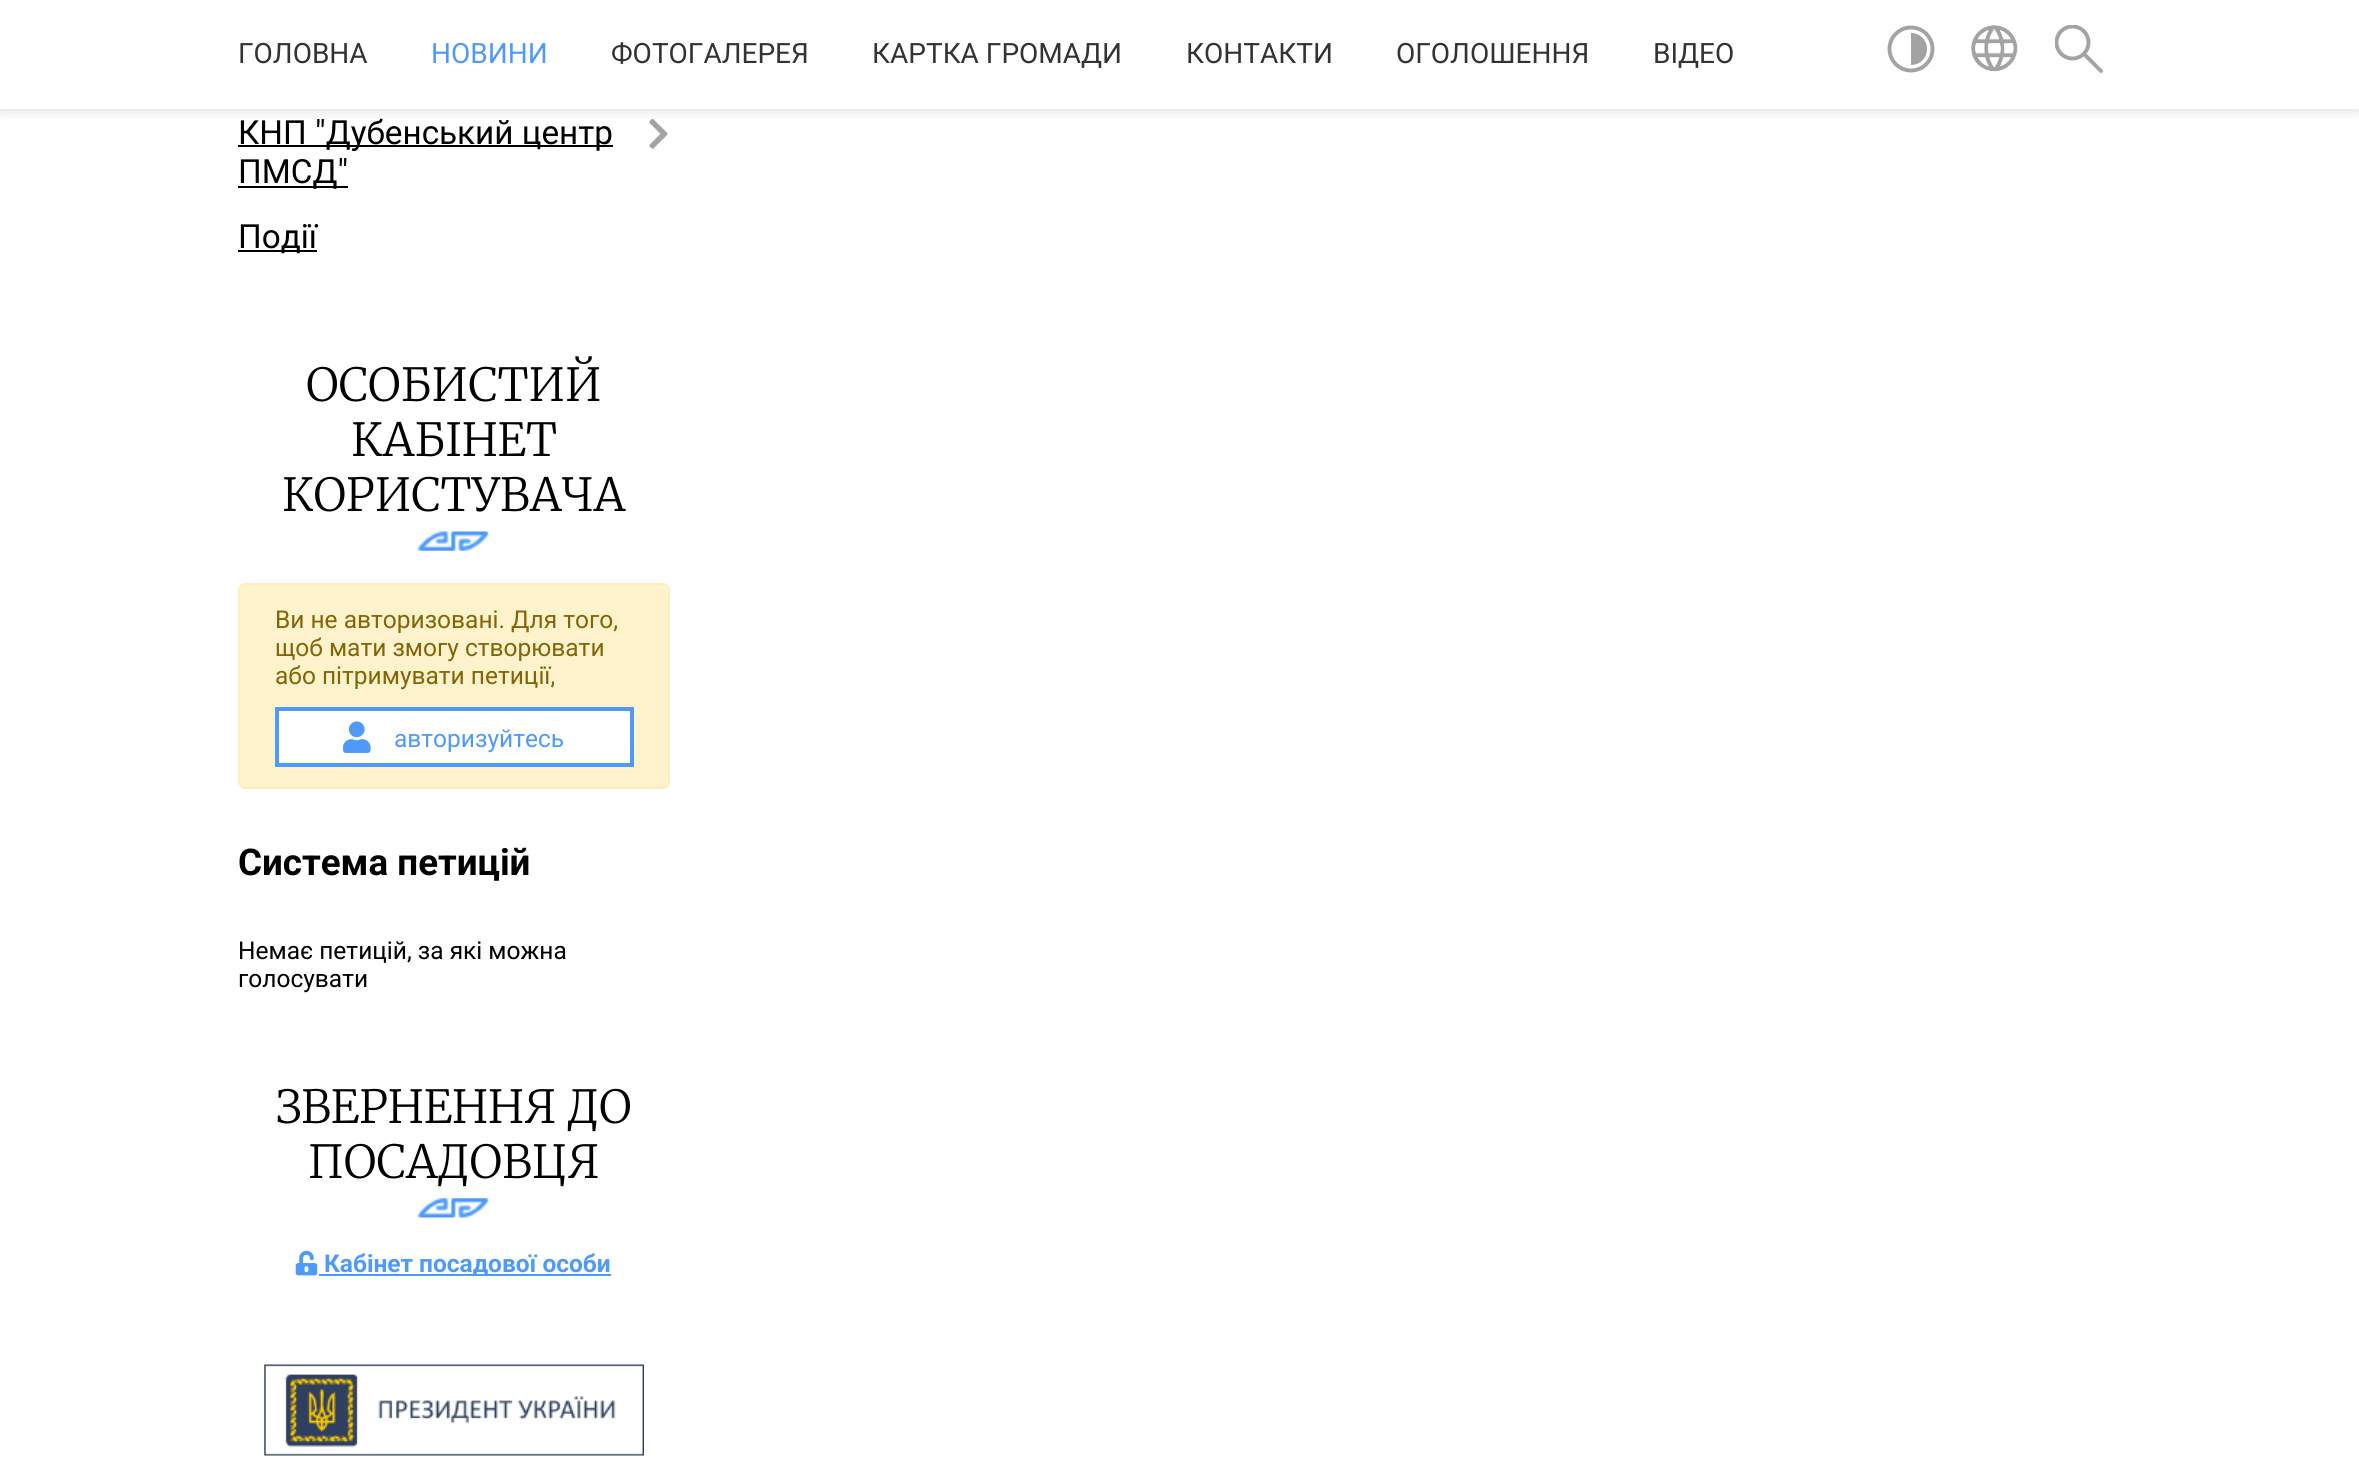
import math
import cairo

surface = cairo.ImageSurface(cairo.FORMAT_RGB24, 2359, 1460)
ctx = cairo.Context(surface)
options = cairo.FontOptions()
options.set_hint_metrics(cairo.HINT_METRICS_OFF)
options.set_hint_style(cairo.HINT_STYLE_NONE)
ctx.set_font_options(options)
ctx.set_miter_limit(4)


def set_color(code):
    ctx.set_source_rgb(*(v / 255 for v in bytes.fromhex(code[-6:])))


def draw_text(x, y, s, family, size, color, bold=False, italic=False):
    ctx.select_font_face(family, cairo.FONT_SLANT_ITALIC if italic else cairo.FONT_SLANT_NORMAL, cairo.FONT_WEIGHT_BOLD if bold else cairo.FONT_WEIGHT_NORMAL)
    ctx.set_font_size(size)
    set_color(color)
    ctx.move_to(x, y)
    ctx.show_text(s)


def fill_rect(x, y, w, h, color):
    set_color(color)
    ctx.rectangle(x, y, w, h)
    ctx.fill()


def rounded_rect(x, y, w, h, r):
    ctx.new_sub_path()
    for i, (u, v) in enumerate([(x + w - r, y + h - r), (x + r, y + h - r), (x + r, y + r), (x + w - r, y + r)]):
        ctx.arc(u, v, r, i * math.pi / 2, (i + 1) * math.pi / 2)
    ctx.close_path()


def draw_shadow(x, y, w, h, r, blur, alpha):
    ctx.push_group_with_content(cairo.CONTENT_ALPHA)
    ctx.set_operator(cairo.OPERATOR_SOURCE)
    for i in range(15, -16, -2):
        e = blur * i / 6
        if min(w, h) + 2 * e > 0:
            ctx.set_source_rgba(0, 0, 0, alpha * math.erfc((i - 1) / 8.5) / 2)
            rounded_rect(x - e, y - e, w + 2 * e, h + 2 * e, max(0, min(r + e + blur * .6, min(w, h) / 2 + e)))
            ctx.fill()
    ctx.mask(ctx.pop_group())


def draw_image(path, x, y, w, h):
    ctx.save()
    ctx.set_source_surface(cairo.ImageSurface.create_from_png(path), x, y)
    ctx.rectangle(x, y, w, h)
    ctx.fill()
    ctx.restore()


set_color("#ffffff")
ctx.paint()
draw_image("assets/img2.png", 649, 119, 19, 30)
set_color("#000000")
draw_shadow(0, 2, 2359, 108, 0, 6, 0.15)
fill_rect(0, 0, 2359, 109, "#ffffff")
draw_text(238, 63, "ГОЛОВНА", "Roboto", 28, "#333333")
draw_text(431, 63, "НОВИНИ", "Roboto", 28, "#4d9afb")
draw_text(611, 63, "ФОТОГАЛЕРЕЯ", "Roboto", 28, "#333333")
draw_text(872, 63, "КАРТКА ГРОМАДИ", "Roboto", 28, "#333333")
draw_text(1186, 63, "КОНТАКТИ", "Roboto", 28, "#333333")
draw_text(1396, 63, "ОГОЛОШЕННЯ", "Roboto", 28, "#333333")
draw_text(1653, 63, "ВІДЕО", "Roboto", 28, "#333333")
ctx.new_path()
ctx.arc(1911, 49, 21.5, 0, 2 * math.pi)
set_color("#a4a2a2")
ctx.set_line_width(3.9)
ctx.stroke()
ctx.set_fill_rule(cairo.FILL_RULE_EVEN_ODD)
ctx.new_path()
ctx.move_to(1911, 33)
ctx.curve_to(1920, 33, 1927, 40, 1927, 49)
ctx.curve_to(1927, 58, 1920, 65, 1911, 65)
ctx.close_path()
ctx.fill()
draw_image("assets/img1.png", 1971, 25, 47, 47)
ctx.save()
ctx.set_fill_rule(cairo.FILL_RULE_WINDING)
ctx.rectangle(2055, 25, 49, 49)
ctx.clip()
ctx.arc(2072.5, 42.5, 16, 0, 2 * math.pi)
ctx.stroke()
ctx.restore()
ctx.new_path()
ctx.move_to(2084.5, 54.5)
ctx.line_to(2101, 71)
ctx.set_line_cap(cairo.LINE_CAP_ROUND)
ctx.set_line_join(cairo.LINE_JOIN_ROUND)
ctx.stroke()
fill_rect(238, 145, 375, 2, "#000000")
draw_text(238, 144, "КНП \"Дубенський центр", "Roboto", 33.25, "#000000")
fill_rect(238, 186, 110, 2, "#000000")
draw_text(238, 183, "ПМСД\"", "Roboto", 33.25, "#000000")
fill_rect(238, 250, 79, 2, "#000000")
draw_text(238, 248, "Події", "Roboto", 33.25, "#000000")
draw_text(306, 401, "ОСОБИСТИЙ", "Merriweather Light", 45.5, "#000000")
draw_text(351, 456, "КАБІНЕТ", "Merriweather Light", 45.5, "#000000")
draw_text(282, 511, "КОРИСТУВАЧА", "Merriweather Light", 45.5, "#000000")
draw_image("assets/img3.png", 418, 531, 71, 20)
set_color("#fff3cd")
rounded_rect(239, 584, 430, 204, 6)
ctx.fill_preserve()
set_color("#ffeeba")
ctx.set_line_width(2)
ctx.set_line_cap(cairo.LINE_CAP_BUTT)
ctx.set_line_join(cairo.LINE_JOIN_MITER)
ctx.stroke()
draw_text(275, 628, "Ви не авторизовані. Для того,", "Roboto", 24.5, "#856404")
draw_text(275, 656, "щоб мати змогу створювати", "Roboto", 24.5, "#856404")
draw_text(275, 684, "або пітримувати петиції,", "Roboto", 24.5, "#856404")
set_color("#ffffff")
ctx.rectangle(277, 709, 355, 56)
ctx.fill_preserve()
set_color("#4d9afb")
ctx.set_line_width(4)
ctx.stroke()
draw_image("assets/img4.png", 343, 721, 28, 32)
draw_text(394, 747, "авторизуйтесь", "Roboto", 24.5, "#4d9afb")
draw_text(238, 875, "Система петицій", "Roboto", 36.75, "#000000", bold=True)
draw_text(238, 959, "Немає петицій, за які можна", "Roboto", 24.5, "#000000")
draw_text(238, 987, "голосувати", "Roboto", 24.5, "#000000")
draw_text(276, 1123, "ЗВЕРНЕННЯ ДО", "Merriweather Light", 45.5, "#000000")
draw_text(308, 1178, "ПОСАДОВЦЯ", "Merriweather Light", 45.5, "#000000")
draw_image("assets/img5.png", 418, 1198, 71, 20)
draw_image("assets/img6.png", 295, 1250, 23, 26)
fill_rect(319, 1274, 292, 2, "#4d9afb")
draw_text(324, 1272, "Кабінет посадової особи", "Roboto", 24.5, "#4d9afb", bold=True)
draw_image("assets/img7.png", 264, 1364, 380, 92)
surface.write_to_png("output.png")
